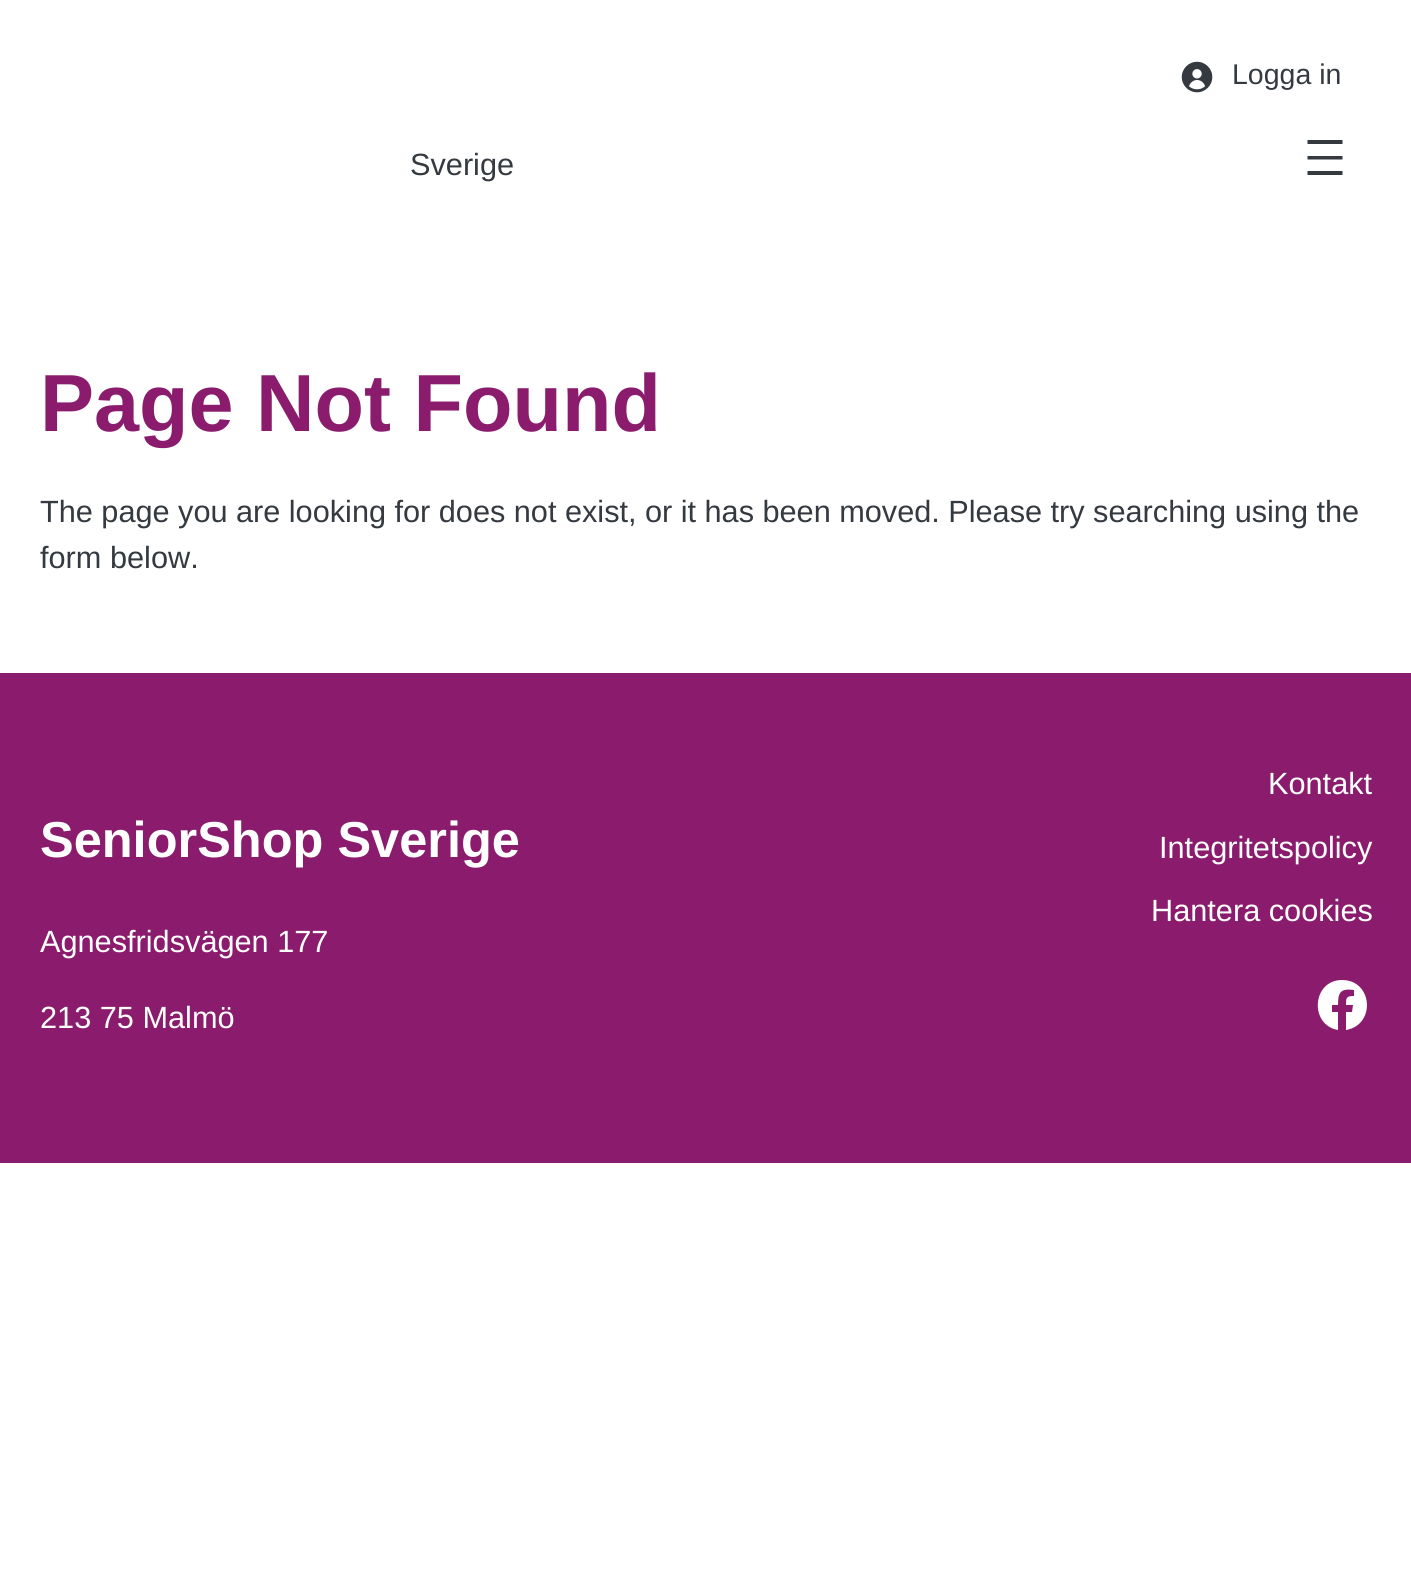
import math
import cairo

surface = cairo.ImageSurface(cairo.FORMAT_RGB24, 1411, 1593)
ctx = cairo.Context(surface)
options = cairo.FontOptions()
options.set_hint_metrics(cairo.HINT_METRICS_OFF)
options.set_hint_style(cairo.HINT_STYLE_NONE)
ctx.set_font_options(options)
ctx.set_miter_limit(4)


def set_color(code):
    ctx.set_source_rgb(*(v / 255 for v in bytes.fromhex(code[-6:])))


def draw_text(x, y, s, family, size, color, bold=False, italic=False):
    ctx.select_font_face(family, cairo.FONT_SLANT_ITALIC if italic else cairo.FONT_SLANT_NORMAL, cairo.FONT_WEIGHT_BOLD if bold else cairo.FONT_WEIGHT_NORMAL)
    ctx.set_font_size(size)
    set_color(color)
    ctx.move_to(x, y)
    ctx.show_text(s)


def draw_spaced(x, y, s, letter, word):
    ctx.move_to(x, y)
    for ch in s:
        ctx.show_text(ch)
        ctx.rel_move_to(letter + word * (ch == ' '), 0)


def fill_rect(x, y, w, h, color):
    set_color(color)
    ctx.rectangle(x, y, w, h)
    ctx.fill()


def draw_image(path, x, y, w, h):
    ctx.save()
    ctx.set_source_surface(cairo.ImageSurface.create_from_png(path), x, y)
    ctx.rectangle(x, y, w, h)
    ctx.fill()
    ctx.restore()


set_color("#ffffff")
ctx.paint()
draw_image("assets/img1.png", 1181, 61, 32, 32)
draw_text(1232, 84, "Logga in", "Liberation Sans", 28.5, "#343a40")
ctx.new_path()
ctx.move_to(1307.5, 140)
ctx.line_to(1307.5, 144)
ctx.line_to(1342.5, 144)
ctx.line_to(1342.5, 140)
ctx.close_path()
ctx.move_to(1307.5, 159.5)
ctx.line_to(1342.5, 159.5)
ctx.line_to(1342.5, 156)
ctx.line_to(1307.5, 156)
ctx.close_path()
ctx.move_to(1307.5, 175)
ctx.line_to(1342.5, 175)
ctx.line_to(1342.5, 171)
ctx.line_to(1307.5, 171)
ctx.close_path()
ctx.fill()
draw_text(410, 175, "Sverige", "Liberation Sans", 30.7, "#343a40")
draw_text(40, 431, "Page Not Found", "Liberation Sans", 81, "#8b1c6d", bold=True)
ctx.select_font_face("Liberation Sans")
ctx.set_font_size(30.7)
set_color("#343a40")
draw_spaced(40, 522, "The page you are looking for does not exist, or it has been moved. Please try searching using the", 0, -0.1)
draw_text(40, 568, "form below.", "Liberation Sans", 30.7, "#343a40")
fill_rect(0, 673, 1411, 490, "#8b1c6d")
draw_text(40, 857, "SeniorShop Sverige", "Liberation Sans", 50.5, "#ffffff", bold=True)
draw_text(40, 952, "Agnesfridsvägen 177", "Liberation Sans", 30.7, "#ffffff")
draw_text(40, 1028, "213 75 Malmö", "Liberation Sans", 30.7, "#ffffff")
draw_text(1268, 794, "Kontakt", "Liberation Sans", 30.7, "#ffffff")
draw_text(1159, 858, "Integritetspolicy", "Liberation Sans", 30.7, "#ffffff")
draw_text(1151, 921, "Hantera cookies", "Liberation Sans", 30.7, "#ffffff")
ctx.new_path()
ctx.move_to(1342, 980)
ctx.curve_to(1312, 980, 1309, 1025, 1338, 1030)
ctx.line_to(1338, 1012)
ctx.line_to(1332, 1012)
ctx.line_to(1332, 1005)
ctx.line_to(1338, 1005)
ctx.curve_to(1338, 993, 1340, 988, 1354, 990)
ctx.line_to(1354, 996)
ctx.curve_to(1346, 996, 1346, 998, 1346, 1005)
ctx.line_to(1353, 1005)
ctx.line_to(1352, 1012)
ctx.line_to(1346, 1012)
ctx.line_to(1346, 1030)
ctx.curve_to(1376, 1025, 1373, 980, 1342, 980)
ctx.close_path()
ctx.fill()
surface.write_to_png("output.png")
